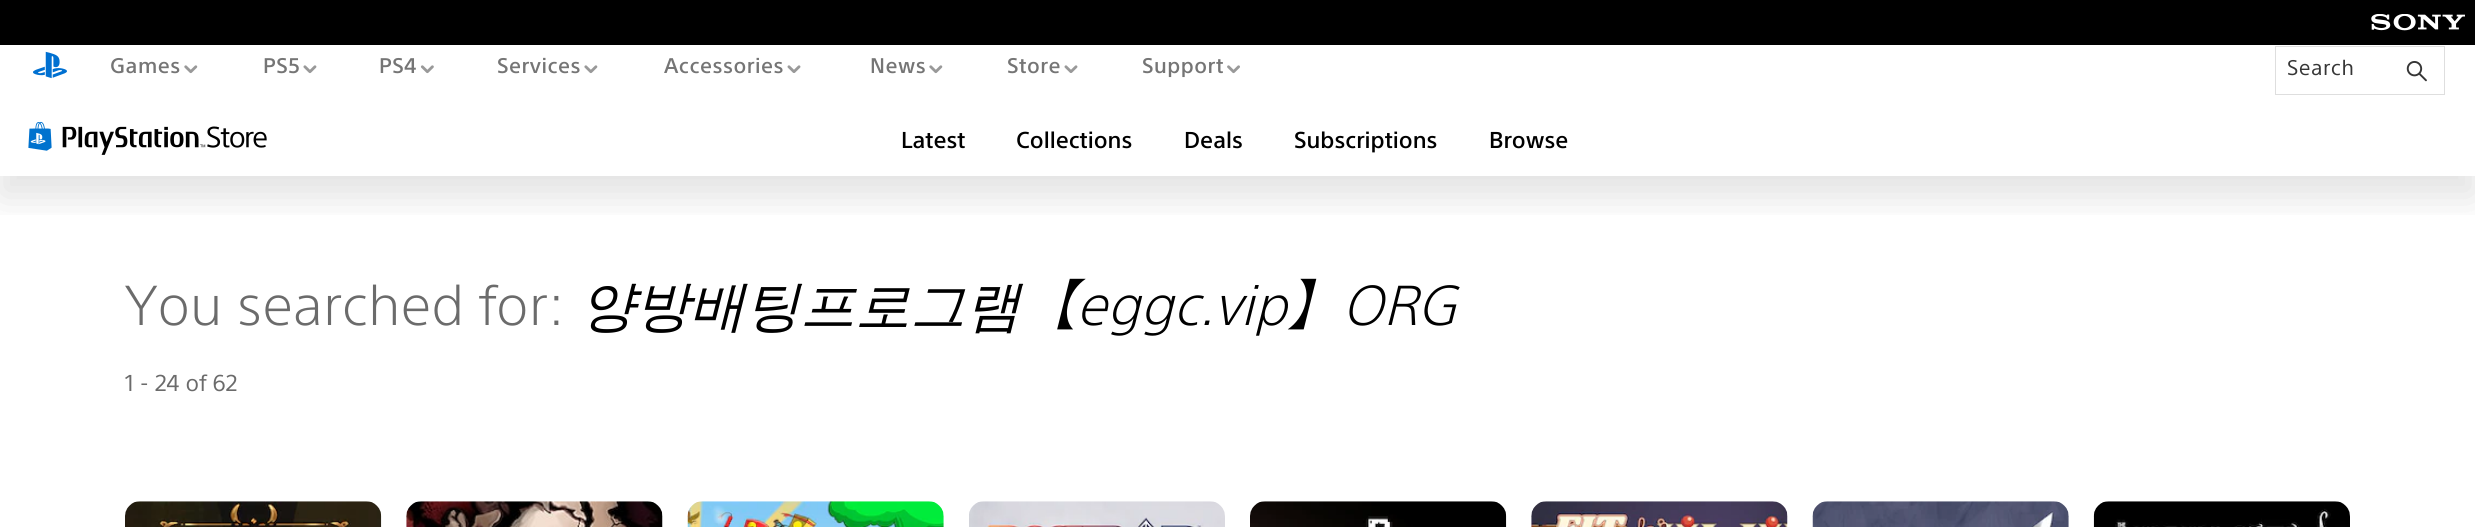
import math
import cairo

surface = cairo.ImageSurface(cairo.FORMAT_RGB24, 2475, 527)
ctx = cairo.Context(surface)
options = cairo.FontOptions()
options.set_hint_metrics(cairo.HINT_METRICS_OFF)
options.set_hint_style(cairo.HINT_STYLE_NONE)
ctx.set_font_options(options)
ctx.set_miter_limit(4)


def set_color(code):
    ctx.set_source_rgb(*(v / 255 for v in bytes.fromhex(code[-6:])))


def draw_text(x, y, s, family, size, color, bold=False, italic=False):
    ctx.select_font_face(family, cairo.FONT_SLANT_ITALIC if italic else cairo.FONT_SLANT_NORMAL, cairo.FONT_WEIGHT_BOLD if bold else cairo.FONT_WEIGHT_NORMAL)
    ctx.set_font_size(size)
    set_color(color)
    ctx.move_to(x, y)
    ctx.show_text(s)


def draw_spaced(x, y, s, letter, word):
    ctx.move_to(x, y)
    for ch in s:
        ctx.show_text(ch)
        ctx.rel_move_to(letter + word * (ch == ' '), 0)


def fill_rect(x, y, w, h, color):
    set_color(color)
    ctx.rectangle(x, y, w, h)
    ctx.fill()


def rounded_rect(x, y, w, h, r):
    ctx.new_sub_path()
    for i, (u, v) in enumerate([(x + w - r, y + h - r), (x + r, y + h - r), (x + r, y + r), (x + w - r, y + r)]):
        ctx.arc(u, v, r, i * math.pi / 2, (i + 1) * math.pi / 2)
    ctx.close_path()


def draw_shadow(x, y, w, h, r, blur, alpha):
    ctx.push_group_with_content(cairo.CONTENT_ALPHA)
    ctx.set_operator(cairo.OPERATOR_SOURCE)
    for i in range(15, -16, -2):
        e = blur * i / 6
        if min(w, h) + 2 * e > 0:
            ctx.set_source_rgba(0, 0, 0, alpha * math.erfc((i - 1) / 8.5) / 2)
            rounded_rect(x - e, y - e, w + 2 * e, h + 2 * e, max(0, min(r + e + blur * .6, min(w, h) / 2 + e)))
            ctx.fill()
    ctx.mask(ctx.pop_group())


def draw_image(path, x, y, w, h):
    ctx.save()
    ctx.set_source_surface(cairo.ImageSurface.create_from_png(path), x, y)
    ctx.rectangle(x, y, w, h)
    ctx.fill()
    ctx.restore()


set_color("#ffffff")
ctx.paint()
fill_rect(0, 0, 2475, 45, "#000000")
draw_image("assets/img1.png", 2371, 14, 94, 17)
ctx.save()
ctx.rectangle(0, 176, 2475, 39)
ctx.clip()
set_color("#000000")
draw_shadow(0, 116, 2475, 80, 0, 20, 0.12)
ctx.restore()
fill_rect(2, 88, 2471, 8, "#ffffff")
draw_image("assets/img2.png", 33, 51, 34, 28)
ctx.select_font_face("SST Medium")
ctx.set_font_size(20.75)
set_color("#757575")
draw_spaced(110, 73, "Games", 0.5, 0)
draw_image("assets/img3.png", 184, 65, 14, 9)
draw_spaced(263, 73, "PS5", 0.5, 0)
draw_image("assets/img4.png", 303, 65, 14, 9)
draw_spaced(379, 73, "PS4", 0.5, 0)
draw_image("assets/img5.png", 420, 65, 14, 9)
draw_spaced(497, 73, "Services", 0.5, 0)
draw_image("assets/img6.png", 584, 65, 14, 9)
draw_spaced(664, 73, "Accessories", 0.5, 0)
draw_image("assets/img7.png", 787, 65, 14, 8)
draw_spaced(870, 73, "News", 0.5, 0)
draw_image("assets/img8.png", 929, 65, 14, 9)
draw_spaced(1007, 73, "Store", 0.5, 0)
draw_image("assets/img9.png", 1064, 65, 14, 8)
draw_spaced(1142, 73, "Support", 0.5, 0)
draw_image("assets/img10.png", 1227, 65, 13, 9)
ctx.rectangle(2275.5, 46.5, 169, 48)
set_color("#dedede")
ctx.set_line_width(1)
ctx.stroke()
ctx.select_font_face("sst")
set_color("#363636")
draw_spaced(2287, 75, "Search", 0.5, 0)
draw_image("assets/img11.png", 2406, 61, 21, 21)
draw_image("assets/img12.png", 28, 121, 24, 30)
draw_image("assets/img13.png", 62, 126, 205, 29)
draw_text(901, 148, "Latest", "SST Medium", 22.5, "#000000")
draw_text(1016, 148, "Collections", "SST Medium", 22.5, "#000000")
draw_text(1184, 148, "Deals", "SST Medium", 22.5, "#000000")
draw_text(1294, 148, "Subscriptions", "SST Medium", 22.5, "#000000")
draw_text(1489, 148, "Browse", "SST Medium", 22.5, "#000000")
ctx.select_font_face("sst Light")
ctx.set_font_size(55)
set_color("#6b6b6b")
draw_spaced(125, 325, "You searched for:", 0.1, 0)
ctx.select_font_face("WenQuanYi Zen Hei Medium", cairo.FONT_SLANT_ITALIC)
set_color("#000000")
draw_spaced(580, 325, "양방배팅프로그램", 0.1, 0)
ctx.select_font_face("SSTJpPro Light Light", cairo.FONT_SLANT_ITALIC)
draw_spaced(1021, 325, "【", 0.1, 0)
ctx.select_font_face("sst Light", cairo.FONT_SLANT_ITALIC)
draw_spaced(1076, 325, "eggc.vip", 0.1, 0)
ctx.select_font_face("SSTJpPro Light Light", cairo.FONT_SLANT_ITALIC)
draw_spaced(1287, 325, "】", 0.1, 0)
ctx.select_font_face("sst Light", cairo.FONT_SLANT_ITALIC)
draw_spaced(1342, 325, "ORG", 0.1, 0)
draw_text(125, 391, "1 - 24 of 62", "sst", 22.5, "#6b6b6b")
draw_image("assets/img14.png", 125, 501, 257, 26)
draw_image("assets/img15.png", 406, 501, 257, 26)
draw_image("assets/img16.png", 687, 501, 257, 26)
draw_image("assets/img17.png", 969, 501, 256, 26)
draw_image("assets/img18.png", 1250, 501, 257, 26)
draw_image("assets/img19.png", 1531, 501, 257, 26)
draw_image("assets/img20.png", 1812, 501, 257, 26)
draw_image("assets/img21.png", 2093, 501, 257, 26)
surface.write_to_png("output.png")
